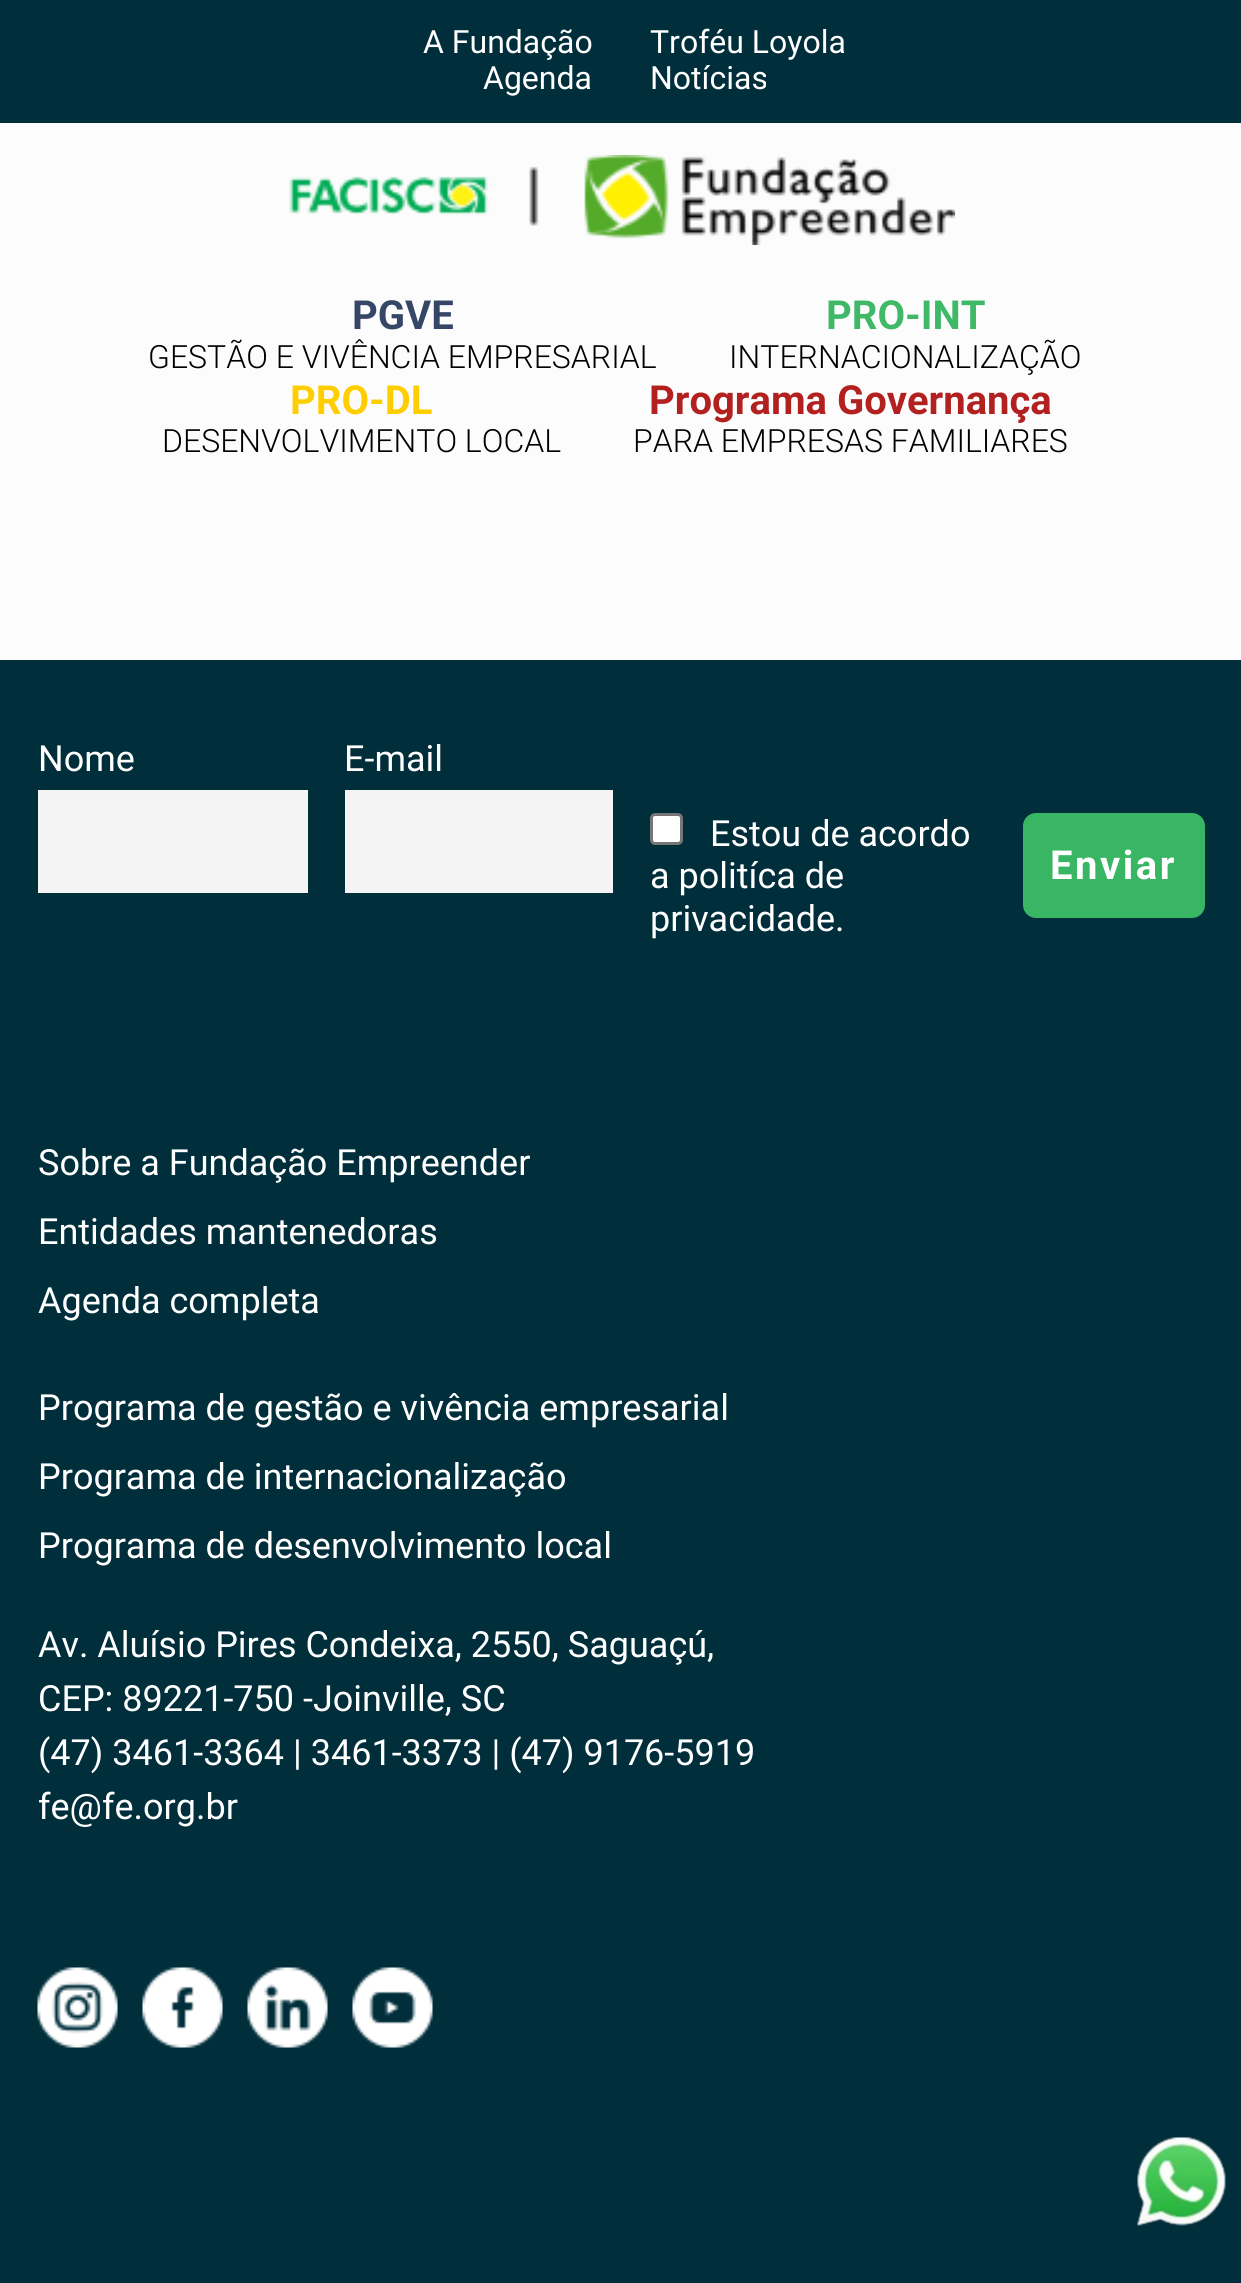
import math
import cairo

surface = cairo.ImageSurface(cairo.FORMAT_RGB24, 1241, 2283)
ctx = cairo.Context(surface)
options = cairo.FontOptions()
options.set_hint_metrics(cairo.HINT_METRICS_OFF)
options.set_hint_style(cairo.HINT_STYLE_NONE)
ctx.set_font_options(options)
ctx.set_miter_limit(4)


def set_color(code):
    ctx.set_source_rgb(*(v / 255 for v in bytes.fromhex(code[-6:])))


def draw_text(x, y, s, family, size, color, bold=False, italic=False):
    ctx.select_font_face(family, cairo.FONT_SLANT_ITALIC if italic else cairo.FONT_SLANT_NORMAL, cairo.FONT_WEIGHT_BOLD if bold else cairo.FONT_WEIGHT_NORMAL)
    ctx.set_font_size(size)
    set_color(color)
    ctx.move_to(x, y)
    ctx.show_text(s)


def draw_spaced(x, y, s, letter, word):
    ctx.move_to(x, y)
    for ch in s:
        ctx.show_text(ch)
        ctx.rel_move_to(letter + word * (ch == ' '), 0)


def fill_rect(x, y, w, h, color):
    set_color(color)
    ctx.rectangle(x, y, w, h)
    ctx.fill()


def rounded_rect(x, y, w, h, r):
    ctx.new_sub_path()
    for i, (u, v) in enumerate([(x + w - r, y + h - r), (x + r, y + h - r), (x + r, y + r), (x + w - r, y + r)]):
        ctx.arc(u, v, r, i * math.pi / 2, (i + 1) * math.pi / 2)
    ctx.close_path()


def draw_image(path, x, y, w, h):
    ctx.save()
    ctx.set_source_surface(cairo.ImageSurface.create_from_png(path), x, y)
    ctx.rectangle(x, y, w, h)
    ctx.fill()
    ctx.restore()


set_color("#002e3b")
ctx.paint()
fill_rect(0, 123, 1241, 537, "#fcfcfc")
draw_text(423, 53, "A Fundação", "Roboto", 32, "#ffffff")
draw_text(650, 53, "Troféu Loyola", "Roboto", 32, "#ffffff")
draw_text(483, 89, "Agenda", "Roboto", 32, "#ffffff")
draw_text(650, 89, "Notícias", "Roboto", 32, "#ffffff")
draw_image("assets/img1.png", 289, 155, 666, 90)
draw_text(352, 329, "PGVE", "Roboto", 40, "#354666", bold=True)
draw_text(148, 368, "GESTÃO E VIVÊNCIA EMPRESARIAL", "Roboto Light", 32, "#000000")
draw_text(826, 329, "PRO-INT", "Roboto", 40, "#3fb867", bold=True)
draw_text(729, 368, "INTERNACIONALIZAÇÃO", "Roboto Light", 32, "#000000")
draw_text(290, 414, "PRO-DL", "Roboto", 40, "#ffce00", bold=True)
draw_text(162, 452, "DESENVOLVIMENTO LOCAL", "Roboto Light", 32, "#000000")
draw_text(649, 414, "Programa Governança", "Roboto", 40, "#b22020", bold=True)
draw_text(633, 452, "PARA EMPRESAS FAMILIARES", "Roboto Light", 32, "#000000")
draw_text(38, 771, "Nome", "Roboto", 36, "#ffffff")
fill_rect(38, 790, 270, 103, "#f4f4f4")
draw_text(344, 771, "E-mail", "Roboto", 36, "#ffffff")
fill_rect(345, 790, 268, 103, "#f4f4f4")
set_color("#ffffff")
rounded_rect(651.5, 814.5, 30, 29, 3.5)
ctx.fill_preserve()
set_color("#767676")
ctx.set_line_width(3)
ctx.stroke()
draw_text(710, 846, "Estou de acordo", "Roboto", 36, "#ffffff")
draw_text(650, 888, "a politíca de", "Roboto", 36, "#ffffff")
draw_text(650, 931, "privacidade.", "Roboto", 36, "#ffffff")
set_color("#39b663")
rounded_rect(1023, 813, 182, 105, 13)
ctx.fill()
ctx.select_font_face("Roboto", cairo.FONT_SLANT_NORMAL, cairo.FONT_WEIGHT_BOLD)
ctx.set_font_size(40)
set_color("#ffffff")
draw_spaced(1050, 879, "Enviar", 2.5, 0)
draw_text(38, 1175, "Sobre a Fundação Empreender", "Roboto", 36, "#ffffff")
draw_text(38, 1244, "Entidades mantenedoras", "Roboto", 36, "#ffffff")
draw_text(38, 1313, "Agenda completa", "Roboto", 36, "#ffffff")
draw_text(38, 1420, "Programa de gestão e vivência empresarial", "Roboto", 36, "#ffffff")
draw_text(38, 1489, "Programa de internacionalização", "Roboto", 36, "#ffffff")
draw_text(38, 1558, "Programa de desenvolvimento local", "Roboto", 36, "#ffffff")
draw_text(38, 1657, "Av. Aluísio Pires Condeixa, 2550, Saguaçú,", "Roboto", 36, "#ffffff")
draw_text(38, 1711, "CEP: 89221-750 -Joinville, SC", "Roboto", 36, "#ffffff")
draw_text(38, 1765, "(47) 3461-3364 | 3461-3373 | (47) 9176-5919", "Roboto", 36, "#ffffff")
draw_text(38, 1819, "fe@fe.org.br", "Roboto", 36, "#ffffff")
draw_image("assets/img2.png", 37, 1967, 81, 81)
draw_image("assets/img3.png", 142, 1967, 81, 81)
draw_image("assets/img4.png", 247, 1967, 81, 81)
draw_image("assets/img5.png", 352, 1967, 81, 81)
draw_image("assets/img6.png", 1137, 2137, 89, 89)
surface.write_to_png("output.png")
